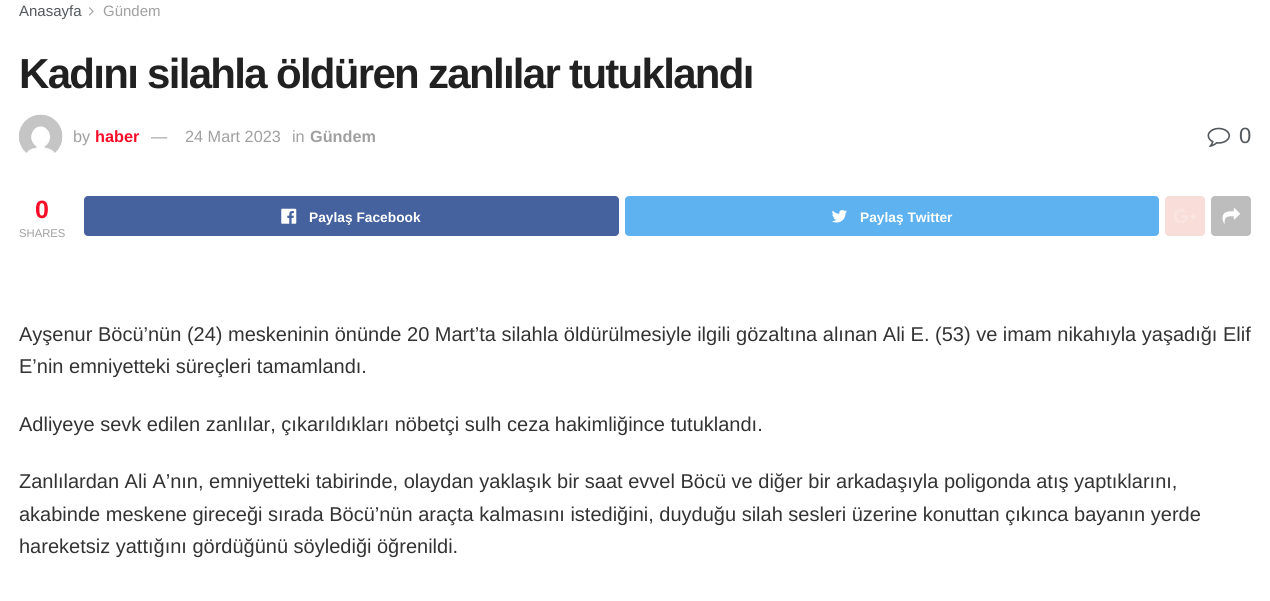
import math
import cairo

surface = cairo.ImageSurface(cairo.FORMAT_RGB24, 1270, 601)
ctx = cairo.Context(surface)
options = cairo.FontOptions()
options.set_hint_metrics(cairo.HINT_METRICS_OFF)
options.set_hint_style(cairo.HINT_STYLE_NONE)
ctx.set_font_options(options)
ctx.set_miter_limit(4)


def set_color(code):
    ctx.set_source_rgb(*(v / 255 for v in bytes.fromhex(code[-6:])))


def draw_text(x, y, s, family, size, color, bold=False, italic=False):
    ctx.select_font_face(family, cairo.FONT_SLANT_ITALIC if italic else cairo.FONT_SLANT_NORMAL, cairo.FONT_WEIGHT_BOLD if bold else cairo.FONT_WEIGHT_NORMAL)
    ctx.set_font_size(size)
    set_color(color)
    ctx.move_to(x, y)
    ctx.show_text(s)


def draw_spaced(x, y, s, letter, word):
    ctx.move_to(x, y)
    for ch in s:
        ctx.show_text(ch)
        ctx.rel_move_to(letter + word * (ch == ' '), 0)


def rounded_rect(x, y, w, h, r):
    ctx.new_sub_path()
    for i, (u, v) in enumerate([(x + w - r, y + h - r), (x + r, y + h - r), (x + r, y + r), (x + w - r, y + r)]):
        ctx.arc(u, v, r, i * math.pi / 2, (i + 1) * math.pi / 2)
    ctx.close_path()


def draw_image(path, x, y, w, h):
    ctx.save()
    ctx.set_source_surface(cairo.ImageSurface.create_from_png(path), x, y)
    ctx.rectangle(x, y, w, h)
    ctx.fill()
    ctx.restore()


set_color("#ffffff")
ctx.paint()
draw_text(19, 16, "Anasayfa", "Liberation Sans", 15, "#53585c")
draw_image("assets/img1.png", 89, 7, 5, 9)
draw_text(103, 16, "Gündem", "Liberation Sans", 15, "#a0a0a0")
ctx.select_font_face("Liberation Sans", cairo.FONT_SLANT_NORMAL, cairo.FONT_WEIGHT_BOLD)
ctx.set_font_size(42)
set_color("#212121")
draw_spaced(19, 88, "Kadını silahla öldüren zanlılar tutuklandı", -1.7, 0)
draw_image("assets/img2.png", 19, 114, 44, 39)
draw_text(73, 142, "by", "Liberation Sans", 16.25, "#a0a0a0")
draw_text(95, 142, "haber", "Liberation Sans", 16.25, "#f70d28", bold=True)
draw_text(151, 142, "—", "Liberation Sans", 16.25, "#a0a0a0")
draw_text(185, 142, "24 Mart 2023", "Liberation Sans", 16.25, "#a0a0a0")
draw_text(292, 142, "in", "Liberation Sans", 16.25, "#a0a0a0")
draw_text(310, 142, "Gündem", "Liberation Sans", 16.25, "#a0a0a0", bold=True)
draw_image("assets/img3.png", 1207, 127, 23, 20)
draw_text(1239, 143, "0", "Liberation Sans", 22, "#53585c")
draw_text(35, 218, "0", "Liberation Sans", 25, "#f70d28", bold=True)
draw_text(19, 237, "SHARES", "Liberation Sans", 11.25, "#a0a0a0")
set_color("#45629f")
rounded_rect(84, 196, 535, 40, 4)
ctx.fill()
draw_image("assets/img4.png", 281, 208, 16, 16)
draw_text(309, 222, "Paylaş Facebook", "Liberation Sans", 13.75, "#ffffff", bold=True)
set_color("#5eb2ef")
rounded_rect(625, 196, 534, 40, 4)
ctx.fill()
draw_image("assets/img5.png", 831, 210, 16, 13)
draw_text(860, 222, "Paylaş Twitter", "Liberation Sans", 13.75, "#ffffff", bold=True)
set_color("#f9ddd9")
rounded_rect(1165, 196, 40, 40, 4)
ctx.fill()
draw_image("assets/img6.png", 1174, 209, 22, 14)
set_color("#bdbdbd")
rounded_rect(1211, 196, 40, 40, 4)
ctx.fill()
draw_image("assets/img7.png", 1222, 208, 18, 16)
draw_text(19, 341, "Ayşenur Böcü’nün (24) meskeninin önünde 20 Mart’ta silahla öldürülmesiyle ilgili gözaltına alınan Ali E. (53) ve imam nikahıyla yaşadığı Elif", "Liberation Sans", 20, "#333333")
draw_text(19, 373, "E’nin emniyetteki süreçleri tamamlandı.", "Liberation Sans", 20, "#333333")
draw_text(19, 431, "Adliyeye sevk edilen zanlılar, çıkarıldıkları nöbetçi sulh ceza hakimliğince tutuklandı.", "Liberation Sans", 20, "#333333")
draw_text(19, 488, "Zanlılardan Ali A’nın, emniyetteki tabirinde, olaydan yaklaşık bir saat evvel Böcü ve diğer bir arkadaşıyla poligonda atış yaptıklarını,", "Liberation Sans", 20, "#333333")
draw_text(19, 521, "akabinde meskene gireceği sırada Böcü’nün araçta kalmasını istediğini, duyduğu silah sesleri üzerine konuttan çıkınca bayanın yerde", "Liberation Sans", 20, "#333333")
draw_text(19, 553, "hareketsiz yattığını gördüğünü söylediği öğrenildi.", "Liberation Sans", 20, "#333333")
surface.write_to_png("output.png")
